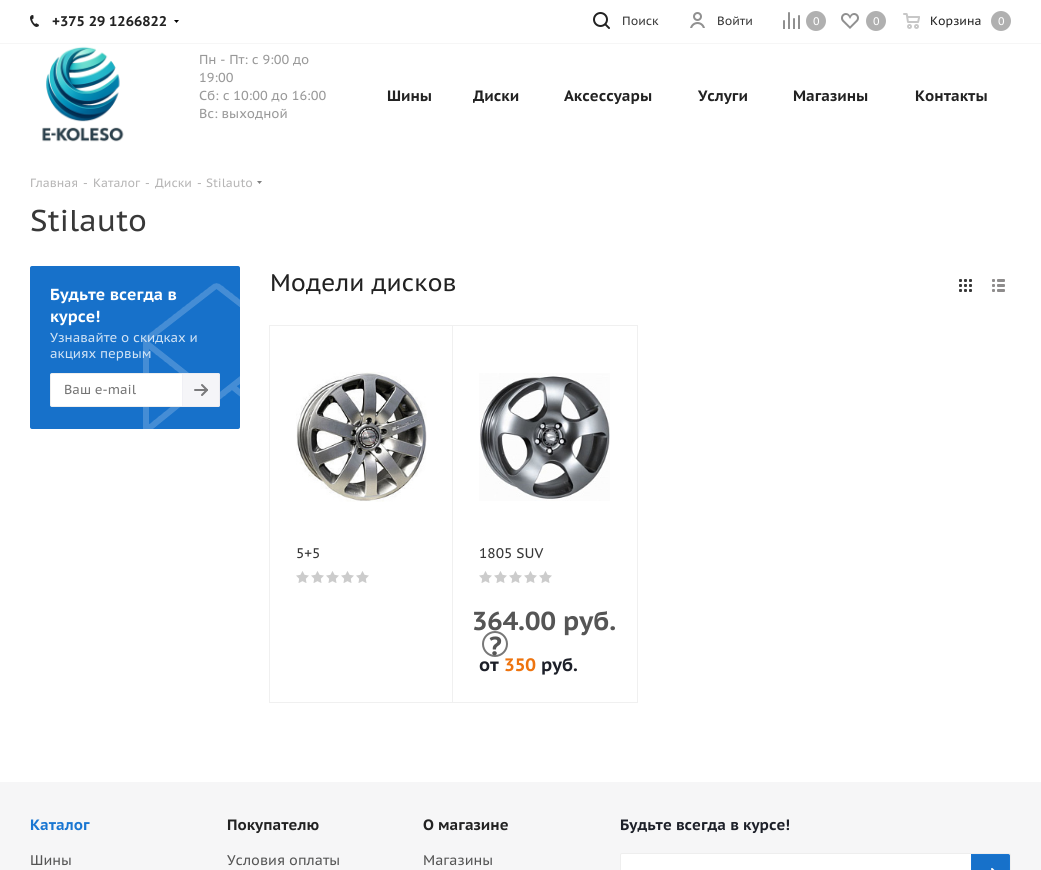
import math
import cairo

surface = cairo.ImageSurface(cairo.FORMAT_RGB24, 1041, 870)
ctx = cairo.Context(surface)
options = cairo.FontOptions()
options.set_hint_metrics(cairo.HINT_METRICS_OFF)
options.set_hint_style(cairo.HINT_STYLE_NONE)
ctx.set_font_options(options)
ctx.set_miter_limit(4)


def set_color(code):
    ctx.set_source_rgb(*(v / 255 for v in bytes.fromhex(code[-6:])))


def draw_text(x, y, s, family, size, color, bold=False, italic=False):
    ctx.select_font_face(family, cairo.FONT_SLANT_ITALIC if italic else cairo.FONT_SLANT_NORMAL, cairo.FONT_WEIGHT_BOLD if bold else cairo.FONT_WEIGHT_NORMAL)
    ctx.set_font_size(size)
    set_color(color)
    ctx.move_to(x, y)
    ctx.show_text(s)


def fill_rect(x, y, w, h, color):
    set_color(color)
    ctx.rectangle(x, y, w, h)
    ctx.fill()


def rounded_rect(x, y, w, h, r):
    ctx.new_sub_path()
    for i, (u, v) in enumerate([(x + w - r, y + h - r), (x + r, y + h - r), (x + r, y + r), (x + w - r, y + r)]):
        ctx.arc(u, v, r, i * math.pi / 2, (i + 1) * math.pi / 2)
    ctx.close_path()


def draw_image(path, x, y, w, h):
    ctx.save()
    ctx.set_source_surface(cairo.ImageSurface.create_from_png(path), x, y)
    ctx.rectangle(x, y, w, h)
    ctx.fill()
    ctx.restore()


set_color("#ffffff")
ctx.paint()
fill_rect(0, 43, 1041, 1, "#f6f6f6")
draw_image("assets/img1.png", 30, 15, 9, 12)
draw_text(52, 26, "+375 29 1266822", "PT Sans Caption", 14, "#222222", bold=True)
draw_image("assets/img2.png", 174, 20, 5, 3)
draw_image("assets/img3.png", 593, 12, 17, 17)
draw_text(622, 25, "Поиск", "PT Sans Caption", 12, "#383838")
draw_image("assets/img4.png", 690, 12, 15, 16)
draw_text(717, 25, "Войти", "PT Sans Caption", 12, "#383838")
draw_image("assets/img5.png", 783, 12, 17, 17)
set_color("#b0b0b0")
ctx.arc(816, 21, 10, 0, 2 * math.pi)
ctx.fill()
draw_text(813, 25, "0", "PT Sans Caption", 11, "#ffffff")
draw_image("assets/img6.png", 841, 13, 18, 16)
set_color("#b0b0b0")
ctx.arc(876, 21, 10, 0, 2 * math.pi)
ctx.fill()
draw_text(873, 25, "0", "PT Sans Caption", 11, "#ffffff")
draw_image("assets/img7.png", 903, 13, 17, 16)
draw_text(930, 25, "Корзина", "PT Sans Caption", 12, "#222222")
set_color("#b0b0b0")
ctx.new_path()
ctx.arc(1001, 21, 10, 0, 2 * math.pi)
ctx.fill()
draw_text(998, 25, "0", "PT Sans Caption", 11, "#ffffff")
draw_image("assets/img8.png", 42, 46, 82, 96)
draw_text(199, 64, "Пн - Пт: с 9:00 до", "PT Sans Caption", 13, "#999999")
draw_text(199, 82, "19:00", "PT Sans Caption", 13, "#999999")
draw_text(199, 100, "Сб: с 10:00 до 16:00", "PT Sans Caption", 13, "#999999")
draw_text(199, 118, "Вс: выходной", "PT Sans Caption", 13, "#999999")
draw_text(387, 101, "Шины", "PT Sans Caption", 15, "#222222", bold=True)
draw_text(473, 101, "Диски", "PT Sans Caption", 15, "#222222", bold=True)
draw_text(564, 101, "Аксессуары", "PT Sans Caption", 15, "#222222", bold=True)
draw_text(698, 101, "Услуги", "PT Sans Caption", 15, "#222222", bold=True)
draw_text(793, 101, "Магазины", "PT Sans Caption", 15, "#222222", bold=True)
draw_text(915, 101, "Контакты", "PT Sans Caption", 15, "#222222", bold=True)
draw_text(30, 187, "Главная", "PT Sans Caption", 12, "#b6b5b5")
draw_text(83, 187, "-", "PT Sans Caption", 12, "#b6b5b5")
draw_text(93, 187, "Каталог", "PT Sans Caption", 12, "#b6b5b5")
draw_text(145, 187, "-", "PT Sans Caption", 12, "#b6b5b5")
draw_text(155, 187, "Диски", "PT Sans Caption", 12, "#b6b5b5")
draw_text(197, 187, "-", "PT Sans Caption", 12, "#b6b5b5")
draw_text(206, 187, "Stilauto", "PT Sans Caption", 12, "#b6b5b5")
draw_image("assets/img9.png", 257, 181, 5, 3)
draw_text(30, 231, "Stilauto", "PT Sans Caption", 30, "#383838")
set_color("#1771ca")
rounded_rect(30, 266, 210, 163, 2)
ctx.fill()
draw_text(50, 300, "Будьте всегда в", "PT Sans Caption", 16, "#ffffff", bold=True)
draw_image("assets/img10.png", 143, 283, 97, 146)
draw_text(50, 322, "курсе!", "PT Sans Caption", 16, "#ffffff", bold=True)
draw_text(50, 342, "Узнавайте о скидках и", "PT Sans Caption", 13, "#d1e3f5")
draw_text(50, 358, "акциях первым", "PT Sans Caption", 13, "#d1e3f5")
set_color("#ffffff")
rounded_rect(50.5, 373.5, 169, 33, 1.5)
ctx.fill_preserve()
set_color("#eeeeee")
ctx.set_line_width(1)
ctx.stroke()
draw_text(64, 394, "Ваш e-mail", "PT Sans Caption", 13, "#757575")
ctx.set_source_rgba(0.925, 0.925, 0.949, 0.5)
ctx.new_path()
ctx.move_to(182, 373)
ctx.line_to(218, 373)
ctx.curve_to(219, 373, 220, 374, 220, 375)
ctx.line_to(220, 405)
ctx.curve_to(220, 406, 219, 407, 218, 407)
ctx.line_to(182, 407)
ctx.close_path()
ctx.fill()
draw_image("assets/img11.png", 194, 384, 14, 12)
ctx.new_path()
ctx.move_to(182.5, 373.5)
ctx.line_to(218, 373.5)
ctx.curve_to(219, 373.5, 219.5, 374, 219.5, 375)
ctx.line_to(219.5, 405)
ctx.curve_to(219.5, 406, 219, 406.5, 218, 406.5)
ctx.line_to(182.5, 406.5)
ctx.close_path()
ctx.stroke()
draw_text(270, 291, "Модели дисков", "PT Sans Caption", 24, "#222222")
draw_image("assets/img12.png", 959, 279, 13, 13)
draw_image("assets/img13.png", 992, 279, 13, 13)
ctx.rectangle(269.5, 325.5, 184, 377)
set_color("#f0f0f0")
ctx.stroke()
draw_image("assets/img14.png", 296, 372, 131, 130)
draw_text(296, 558, "5+5", "PT Sans Caption", 14, "#383838")
draw_image("assets/img15.png", 296, 571, 13, 12)
draw_image("assets/img15.png", 311, 571, 13, 12)
draw_image("assets/img15.png", 326, 571, 13, 12)
draw_image("assets/img15.png", 341, 571, 13, 12)
draw_image("assets/img15.png", 356, 571, 13, 12)
ctx.rectangle(452.5, 325.5, 185, 377)
set_color("#f0f0f0")
ctx.stroke()
fill_rect(453, 326, 1, 376, "#ffffff")
draw_image("assets/img16.png", 479, 373, 131, 128)
draw_text(479, 558, "1805 SUV", "PT Sans Caption", 14, "#383838")
draw_image("assets/img15.png", 479, 571, 13, 12)
draw_image("assets/img15.png", 494, 571, 13, 12)
draw_image("assets/img15.png", 509, 571, 13, 12)
draw_image("assets/img15.png", 524, 571, 13, 12)
draw_image("assets/img15.png", 539, 571, 13, 12)
draw_text(472, 630, "364.00 руб.", "PT Sans Caption", 26, "#555555", bold=True)
ctx.new_path()
ctx.arc(495, 644, 12, 0, 2 * math.pi)
set_color("#777777")
ctx.set_line_width(2)
ctx.stroke()
draw_text(489, 655, "?", "PT Sans Caption", 26, "#555555", bold=True)
draw_text(479, 671, "от", "PT Sans Caption", 18, "#1d2029", bold=True)
draw_text(504, 671, "350", "PT Sans Caption", 18, "#ee740f", bold=True)
draw_text(541, 671, "руб.", "PT Sans Caption", 18, "#1d2029", bold=True)
fill_rect(0, 782, 1041, 88, "#f6f6f7")
draw_text(30, 830, "Каталог", "PT Sans Caption", 15, "#1976d2", bold=True)
draw_text(30, 865, "Шины", "PT Sans Caption", 14, "#555555")
draw_text(227, 830, "Покупателю", "PT Sans Caption", 15, "#222222", bold=True)
draw_text(227, 865, "Условия оплаты", "PT Sans Caption", 14, "#555555")
draw_text(423, 830, "О магазине", "PT Sans Caption", 15, "#222222", bold=True)
draw_text(423, 865, "Магазины", "PT Sans Caption", 14, "#555555")
draw_text(620, 830, "Будьте всегда в курсе!", "PT Sans Caption", 15, "#1d2029", bold=True)
set_color("#ffffff")
rounded_rect(620.5, 853.5, 390, 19, 1.5)
ctx.fill_preserve()
set_color("#eeeeee")
ctx.set_line_width(1)
ctx.stroke()
set_color("#1771ca")
ctx.new_path()
ctx.move_to(971.5, 854.5)
ctx.line_to(1008, 854.5)
ctx.curve_to(1009, 854.5, 1009.5, 855, 1009.5, 856)
ctx.line_to(1009.5, 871)
ctx.curve_to(1009.5, 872, 1009, 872.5, 1008, 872.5)
ctx.line_to(971.5, 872.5)
ctx.close_path()
ctx.fill_preserve()
set_color("#1976d2")
ctx.stroke()
draw_image("assets/img17.png", 991, 868, 4, 2)
surface.write_to_png("output.png")
